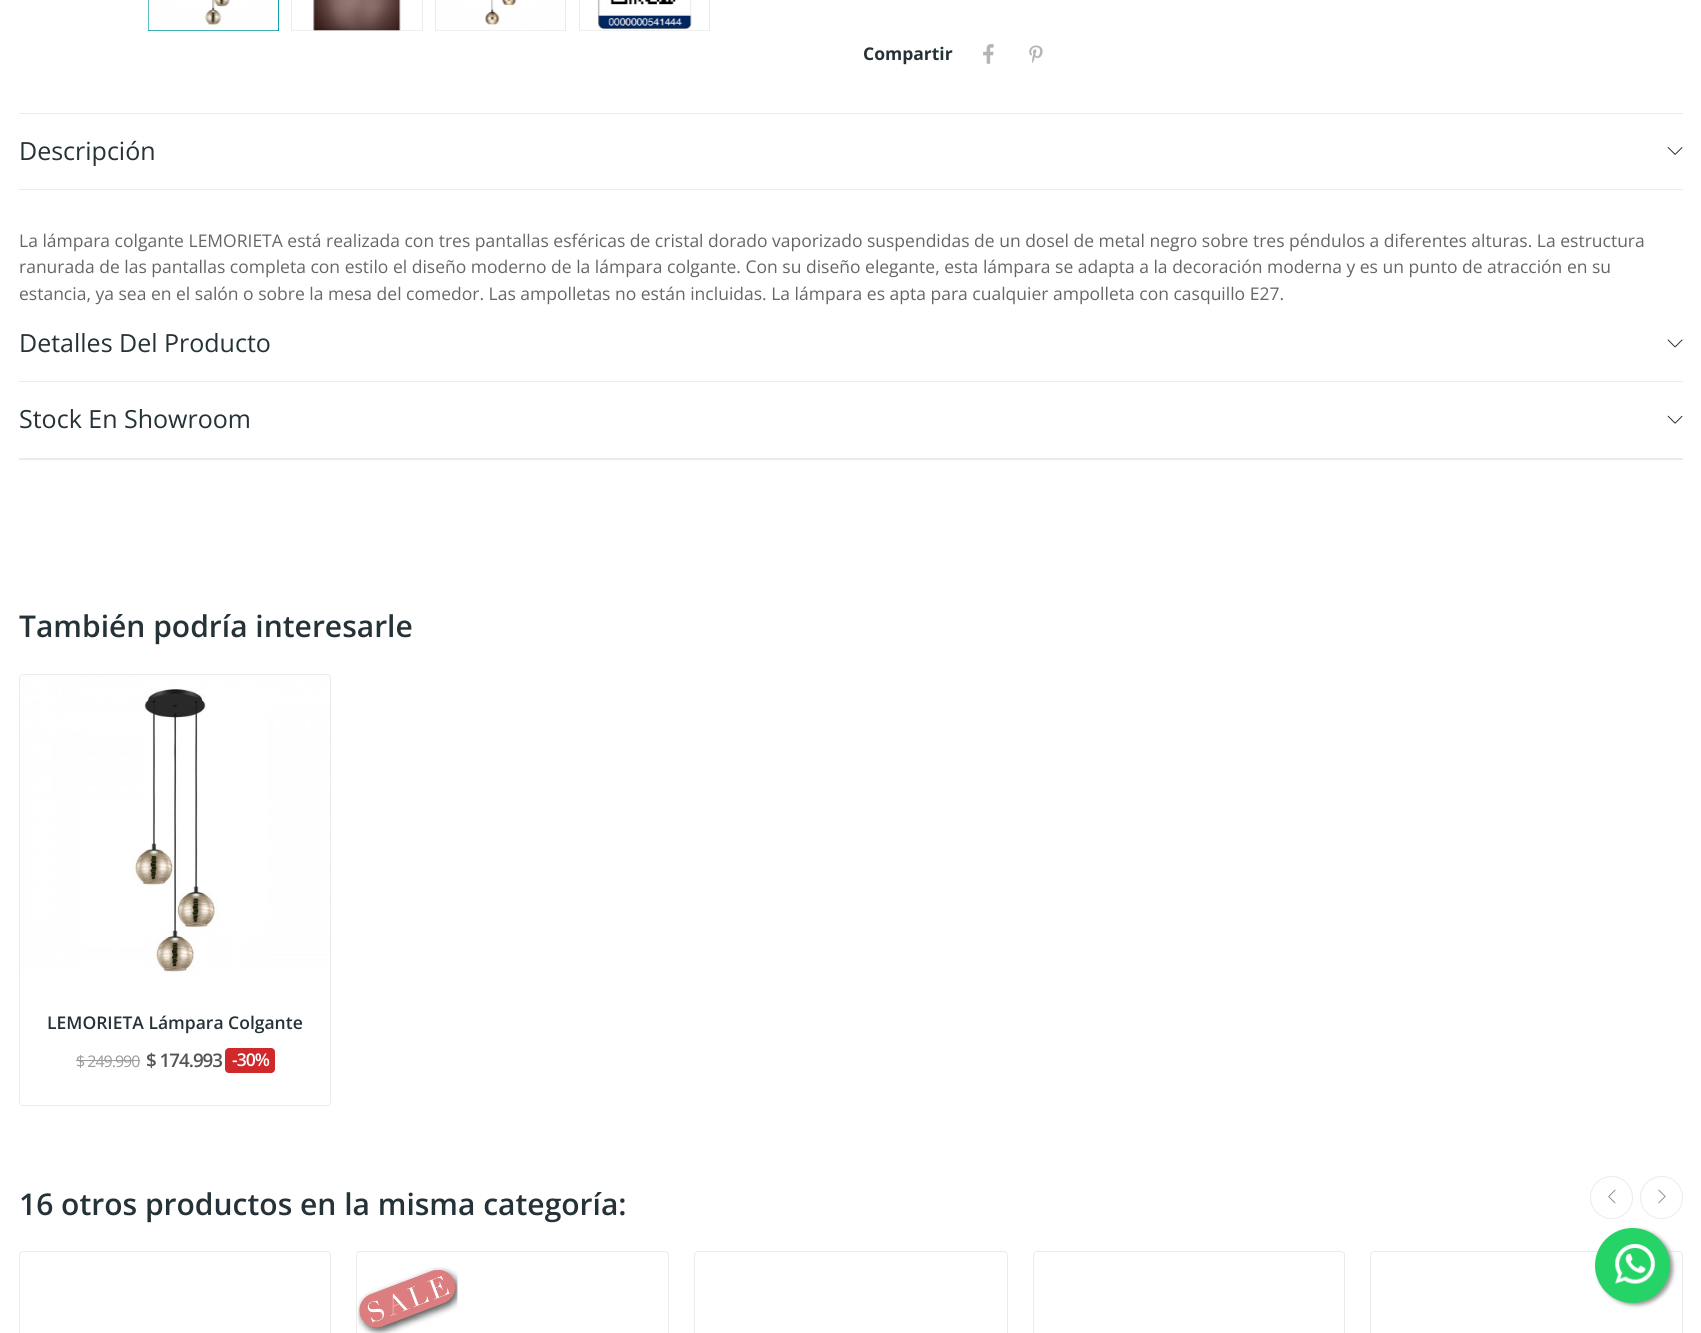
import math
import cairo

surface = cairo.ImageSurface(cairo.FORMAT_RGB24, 1701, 1333)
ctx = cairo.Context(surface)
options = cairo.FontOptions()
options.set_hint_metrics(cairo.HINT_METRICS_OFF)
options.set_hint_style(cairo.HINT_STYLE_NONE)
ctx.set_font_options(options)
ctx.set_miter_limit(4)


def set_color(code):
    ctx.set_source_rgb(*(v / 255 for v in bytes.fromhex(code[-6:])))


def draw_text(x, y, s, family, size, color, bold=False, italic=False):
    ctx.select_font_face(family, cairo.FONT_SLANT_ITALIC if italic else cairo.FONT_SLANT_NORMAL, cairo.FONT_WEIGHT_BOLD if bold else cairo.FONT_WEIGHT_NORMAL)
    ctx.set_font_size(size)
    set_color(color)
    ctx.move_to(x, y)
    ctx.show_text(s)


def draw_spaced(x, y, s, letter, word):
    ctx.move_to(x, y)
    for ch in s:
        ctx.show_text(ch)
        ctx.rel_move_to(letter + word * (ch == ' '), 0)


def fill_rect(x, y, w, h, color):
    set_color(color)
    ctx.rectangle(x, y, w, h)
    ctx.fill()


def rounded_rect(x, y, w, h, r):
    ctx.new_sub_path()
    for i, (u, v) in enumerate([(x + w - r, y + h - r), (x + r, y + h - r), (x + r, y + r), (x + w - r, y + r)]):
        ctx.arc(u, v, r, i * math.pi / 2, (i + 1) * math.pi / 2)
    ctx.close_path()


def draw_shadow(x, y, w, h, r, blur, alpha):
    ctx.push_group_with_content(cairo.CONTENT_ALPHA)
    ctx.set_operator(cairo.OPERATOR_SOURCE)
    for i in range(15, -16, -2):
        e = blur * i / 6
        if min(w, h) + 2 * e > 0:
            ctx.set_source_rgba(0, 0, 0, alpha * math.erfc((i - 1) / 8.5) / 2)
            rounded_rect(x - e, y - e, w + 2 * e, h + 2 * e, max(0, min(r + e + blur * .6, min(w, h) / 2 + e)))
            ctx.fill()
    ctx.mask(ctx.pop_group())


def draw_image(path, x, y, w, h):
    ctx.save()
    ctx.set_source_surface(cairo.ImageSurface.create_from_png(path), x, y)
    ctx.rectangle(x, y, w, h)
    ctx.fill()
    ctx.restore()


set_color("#ffffff")
ctx.paint()
ctx.rectangle(148.5, -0.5, 130, 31)
set_color("#0099a1")
ctx.set_line_width(1)
ctx.stroke()
draw_image("assets/img1.png", 148, 0, 131, 31)
ctx.rectangle(291.5, -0.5, 131, 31)
set_color("#ebebeb")
ctx.stroke()
draw_image("assets/img2.png", 293, 0, 128, 31)
ctx.rectangle(435.5, -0.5, 130, 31)
ctx.stroke()
draw_image("assets/img3.png", 437, 0, 128, 31)
ctx.rectangle(579.5, -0.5, 130, 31)
ctx.stroke()
draw_image("assets/img4.png", 580, 0, 128, 31)
draw_text(863, 60, "Compartir", "Open Sans", 17.5, "#253237", bold=True)
draw_image("assets/img5.png", 983, 44, 11, 20)
draw_image("assets/img6.png", 1029, 45, 14, 18)
fill_rect(19, 113, 1664, 1, "#ebebeb")
fill_rect(19, 189, 1664, 1, "#ebebeb")
draw_text(19, 160, "Descripción", "Open Sans", 25, "#253237")
draw_image("assets/img7.png", 1667, 147, 16, 8)
draw_text(19, 247, "La lámpara colgante LEMORIETA está realizada con tres pantallas esféricas de cristal dorado vaporizado suspendidas de un dosel de metal negro sobre tres péndulos a diferentes alturas. La estructura", "Open Sans", 17.5, "#666666")
draw_text(19, 273, "ranurada de las pantallas completa con estilo el diseño moderno de la lámpara colgante. Con su diseño elegante, esta lámpara se adapta a la decoración moderna y es un punto de atracción en su", "Open Sans", 17.5, "#666666")
draw_text(19, 300, "estancia, ya sea en el salón o sobre la mesa del comedor. Las ampolletas no están incluidas. La lámpara es apta para cualquier ampolleta con casquillo E27.", "Open Sans", 17.5, "#666666")
fill_rect(19, 381, 1664, 1, "#ebebeb")
draw_text(19, 352, "Detalles Del Producto", "Open Sans", 25, "#253237")
draw_image("assets/img8.png", 1667, 339, 16, 9)
fill_rect(19, 458, 1664, 2, "#ebebeb")
draw_text(19, 428, "Stock En Showroom", "Open Sans", 25, "#253237")
draw_image("assets/img9.png", 1667, 415, 16, 9)
draw_text(19, 637, "También podría interesarle", "Open Sans SemiBold", 30, "#253237")
rounded_rect(19.5, 674.5, 311, 431, 3.5)
set_color("#ebebeb")
ctx.stroke()
draw_image("assets/img10.png", 20, 676, 310, 297)
set_color("#ffffff")
ctx.new_path()
ctx.move_to(20, 985)
ctx.line_to(330, 985)
ctx.line_to(330, 1102.5)
ctx.curve_to(330, 1104, 329, 1105, 327.5, 1105)
ctx.line_to(22.5, 1105)
ctx.curve_to(21, 1105, 20, 1104, 20, 1102.5)
ctx.close_path()
ctx.fill()
draw_text(47, 1029, "LEMORIETA Lámpara Colgante", "Open Sans SemiBold", 17.5, "#253237")
ctx.select_font_face("Open Sans")
ctx.set_font_size(16)
set_color("#9b9b9b")
draw_spaced(76, 1067, "$ 249.990", -1, 0)
fill_rect(76, 1060, 64, 1, "#9b9b9b")
ctx.select_font_face("Open Sans SemiBold")
ctx.set_font_size(18.75)
set_color("#555555")
draw_spaced(146, 1067, "$ 174.993", -1, 0)
set_color("#cf292b")
rounded_rect(225, 1048, 50, 25, 4)
ctx.fill()
ctx.set_font_size(17.5)
set_color("#ffffff")
draw_spaced(232, 1066, "-30%", -1, 0)
ctx.new_path()
ctx.arc(1611.5, 1197.5, 21, 0, 2 * math.pi)
set_color("#ebebeb")
ctx.stroke()
draw_image("assets/img11.png", 1608, 1189, 8, 15)
ctx.arc(1661.5, 1197.5, 21, 0, 2 * math.pi)
ctx.stroke()
draw_image("assets/img12.png", 1658, 1189, 8, 15)
rounded_rect(19.5, 1251.5, 311, 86, 3.5)
ctx.stroke()
rounded_rect(356.5, 1251.5, 312, 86, 3.5)
ctx.stroke()
draw_image("assets/img13.png", 357, 1267, 101, 66)
rounded_rect(694.5, 1251.5, 313, 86, 3.5)
ctx.stroke()
rounded_rect(1033.5, 1251.5, 311, 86, 3.5)
ctx.stroke()
rounded_rect(1370.5, 1251.5, 312, 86, 3.5)
ctx.stroke()
draw_text(19, 1215, "16 otros productos en la misma categoría:", "Open Sans SemiBold", 30, "#253237")
set_color("#999999")
draw_shadow(1598, 1230, 75, 75, 37.5, 2, 1)
set_color("#25d366")
ctx.arc(1632.5, 1265.5, 37.5, 0, 2 * math.pi)
ctx.fill()
draw_image("assets/img14.png", 1615, 1244, 40, 40)
surface.write_to_png("output.png")
